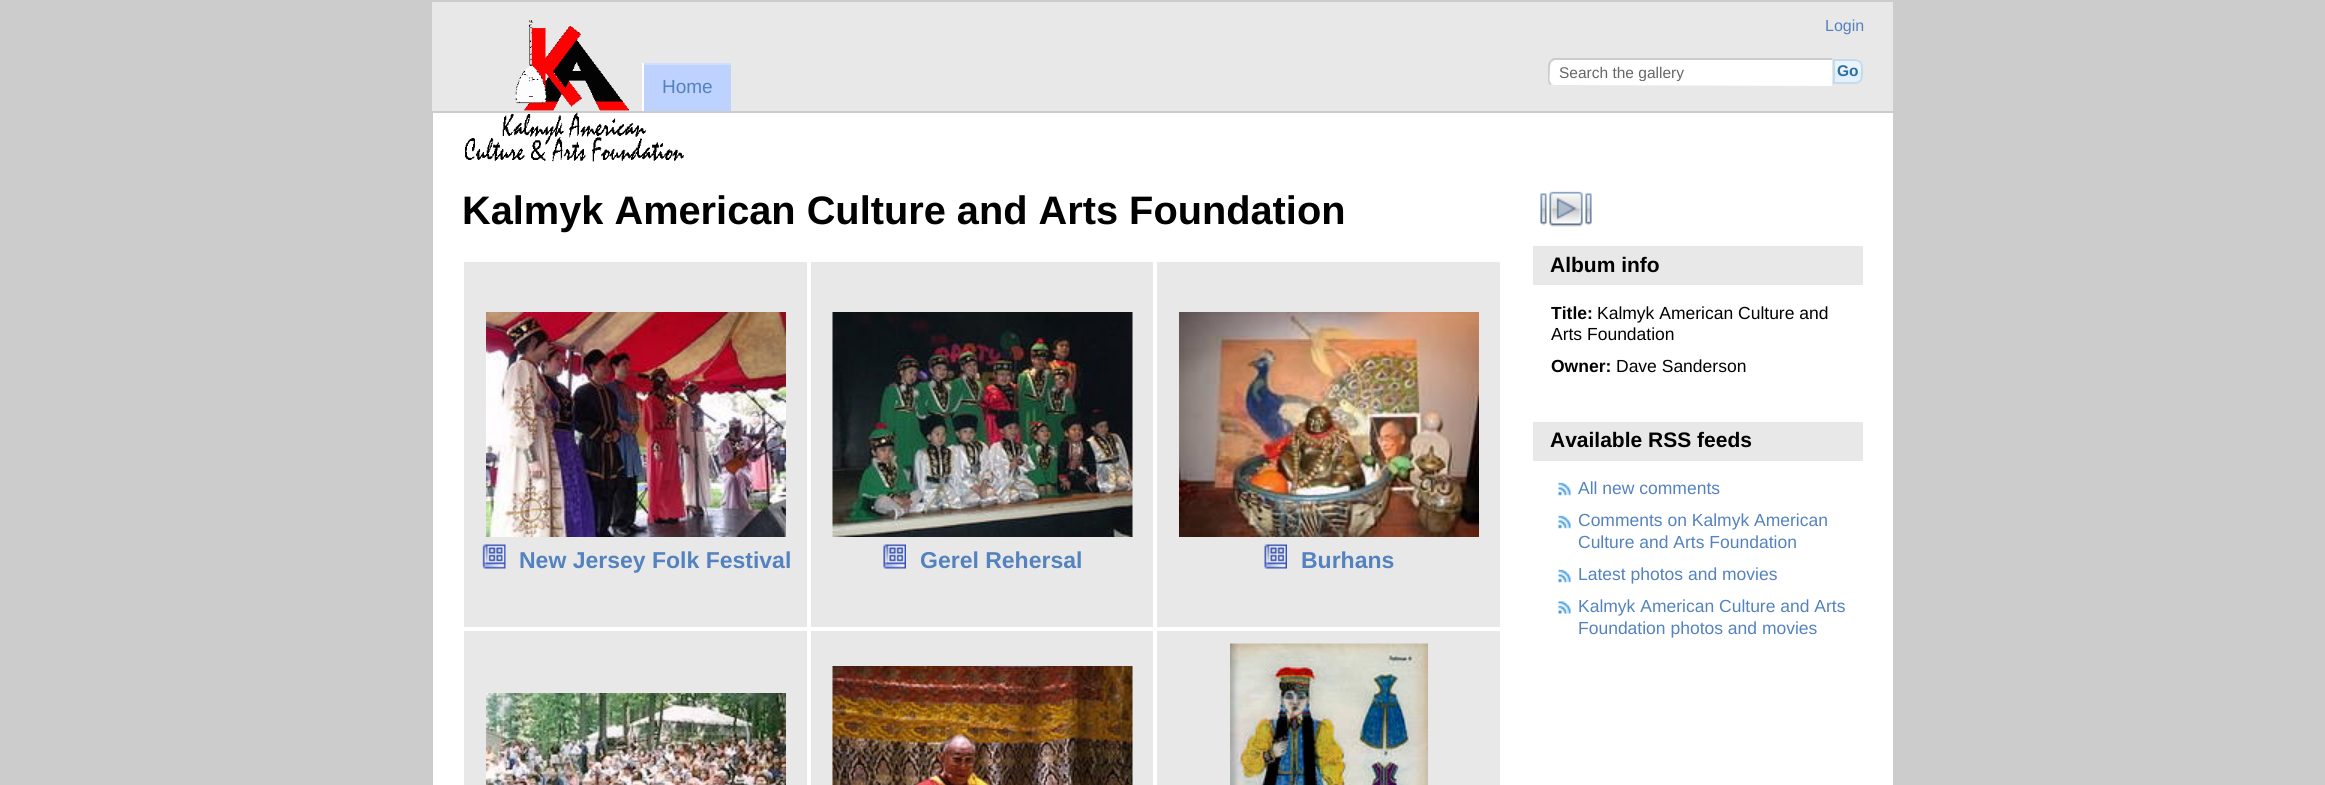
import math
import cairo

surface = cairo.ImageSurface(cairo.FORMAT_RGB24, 2325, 785)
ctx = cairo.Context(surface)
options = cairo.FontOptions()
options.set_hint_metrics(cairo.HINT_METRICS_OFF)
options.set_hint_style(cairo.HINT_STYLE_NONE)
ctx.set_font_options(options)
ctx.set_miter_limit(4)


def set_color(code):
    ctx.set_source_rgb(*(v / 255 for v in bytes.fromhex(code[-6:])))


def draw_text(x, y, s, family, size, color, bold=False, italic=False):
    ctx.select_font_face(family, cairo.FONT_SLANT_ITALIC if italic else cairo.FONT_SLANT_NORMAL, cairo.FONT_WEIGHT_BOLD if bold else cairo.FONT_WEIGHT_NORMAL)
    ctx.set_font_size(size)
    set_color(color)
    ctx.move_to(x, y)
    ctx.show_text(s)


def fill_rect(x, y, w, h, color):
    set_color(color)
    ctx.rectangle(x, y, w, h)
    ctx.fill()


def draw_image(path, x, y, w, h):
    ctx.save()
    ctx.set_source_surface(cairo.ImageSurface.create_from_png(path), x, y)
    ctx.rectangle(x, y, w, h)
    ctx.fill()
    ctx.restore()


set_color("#cccccc")
ctx.paint()
fill_rect(433, 113, 1460, 672, "#ffffff")
fill_rect(432, 2, 1461, 109, "#e8e8e8")
draw_image("assets/img1.png", 465, 19, 219, 143)
draw_text(1825, 31, "Login", "Liberation Sans", 16, "#5382bf")
set_color("#ffffff")
ctx.new_path()
ctx.move_to(1556, 59)
ctx.line_to(1833, 59)
ctx.line_to(1833, 87)
ctx.line_to(1556, 87)
ctx.curve_to(1551.5, 87, 1548, 83.5, 1548, 79)
ctx.line_to(1548, 67)
ctx.curve_to(1548, 62.5, 1551.5, 59, 1556, 59)
ctx.close_path()
ctx.fill()
set_color("#cccccc")
ctx.new_path()
ctx.move_to(1556, 60)
ctx.curve_to(1554, 60, 1552, 61, 1552, 62)
ctx.line_to(1550, 61)
ctx.line_to(1553, 58)
ctx.line_to(1833, 58)
ctx.line_to(1832, 60)
ctx.close_path()
ctx.fill()
set_color("#e8e8e8")
ctx.new_path()
ctx.move_to(1833, 58.5)
ctx.line_to(1831.5, 60)
ctx.line_to(1832, 60)
ctx.line_to(1832, 86)
ctx.line_to(1833, 87)
ctx.close_path()
ctx.fill()
ctx.new_path()
ctx.move_to(1833, 87)
ctx.line_to(1832, 86)
ctx.line_to(1554, 85)
ctx.line_to(1551, 84)
ctx.line_to(1550, 85)
ctx.curve_to(1551, 86, 1553, 87, 1556, 87)
ctx.close_path()
ctx.fill()
set_color("#cccccc")
ctx.new_path()
ctx.move_to(1548, 66)
ctx.line_to(1548, 80)
ctx.curve_to(1548, 82, 1548.5, 83.5, 1550, 85)
ctx.line_to(1551.5, 83.5)
ctx.curve_to(1550.5, 83, 1550, 81.5, 1549.5, 80)
ctx.line_to(1550, 66.5)
ctx.curve_to(1550.5, 65, 1550.5, 63, 1551.5, 62)
ctx.line_to(1550, 60.5)
ctx.curve_to(1548.5, 62, 1548, 64, 1548, 66)
ctx.close_path()
ctx.fill()
ctx.save()
ctx.rectangle(1559, 65, 262, 16)
ctx.clip()
draw_text(1559, 78, "Search the gallery", "Liberation Sans", 15.5, "#666666")
ctx.restore()
draw_image("assets/img2.png", 1833, 58, 30, 26)
ctx.new_path()
ctx.move_to(1834, 60)
ctx.line_to(1855, 60)
ctx.curve_to(1859, 60, 1862, 63, 1862, 67)
ctx.line_to(1862, 76)
ctx.curve_to(1862, 80, 1859, 83, 1855, 83)
ctx.line_to(1834, 83)
ctx.close_path()
set_color("#c5dbec")
ctx.stroke()
draw_text(1837, 76, "Go", "Liberation Sans", 15.5, "#2e6e9e", bold=True)
fill_rect(644, 65, 87, 46, "#bdd2ff")
fill_rect(642, 63, 89, 2, "#cfdeff")
fill_rect(642, 63, 2, 48, "#ffffff")
draw_text(662, 93, "Home", "Liberation Sans", 19, "#5382bf")
draw_text(462, 224, "Kalmyk American Culture and Arts Foundation", "Liberation Sans", 39.75, "#000000", bold=True)
fill_rect(464, 262, 343, 365, "#e8e8e8")
draw_image("assets/img3.png", 486, 312, 300, 225)
draw_image("assets/img4.png", 482, 544, 24, 25)
draw_text(519, 568, "New Jersey Folk Festival", "Liberation Sans", 23, "#5382bf", bold=True)
fill_rect(811, 262, 342, 365, "#e8e8e8")
draw_image("assets/img5.png", 832, 312, 301, 225)
draw_image("assets/img6.png", 883, 544, 23, 25)
draw_text(920, 568, "Gerel Rehersal", "Liberation Sans", 23, "#5382bf", bold=True)
fill_rect(1157, 262, 343, 365, "#e8e8e8")
draw_image("assets/img7.png", 1179, 312, 300, 225)
draw_image("assets/img8.png", 1264, 544, 23, 25)
draw_text(1301, 568, "Burhans", "Liberation Sans", 23, "#5382bf", bold=True)
fill_rect(464, 631, 343, 154, "#e8e8e8")
draw_image("assets/img9.png", 486, 693, 300, 92)
fill_rect(811, 631, 342, 154, "#e8e8e8")
draw_image("assets/img10.png", 832, 666, 301, 119)
fill_rect(1157, 631, 343, 154, "#e8e8e8")
draw_image("assets/img11.png", 1230, 643, 198, 142)
draw_image("assets/img12.png", 1540, 191, 52, 36)
fill_rect(1533, 246, 330, 39, "#e8e8e8")
draw_text(1550, 272, "Album info", "Liberation Sans", 21, "#000000", bold=True)
draw_text(1551, 319, "Title:", "Liberation Sans", 17.5, "#000000", bold=True)
draw_text(1597, 319, "Kalmyk American Culture and", "Liberation Sans", 17.5, "#000000")
draw_text(1551, 340, "Arts Foundation", "Liberation Sans", 17.5, "#000000")
draw_text(1551, 372, "Owner:", "Liberation Sans", 17.5, "#000000", bold=True)
draw_text(1616, 372, "Dave Sanderson", "Liberation Sans", 17.5, "#000000")
fill_rect(1533, 422, 330, 39, "#e8e8e8")
draw_text(1550, 447, "Available RSS feeds", "Liberation Sans", 21, "#000000", bold=True)
draw_image("assets/img13.png", 1558, 482, 13, 14)
draw_text(1578, 494, "All new comments", "Liberation Sans", 17.5, "#5382bf")
draw_image("assets/img13.png", 1558, 515, 13, 14)
draw_text(1578, 526, "Comments on Kalmyk American", "Liberation Sans", 17.5, "#5382bf")
draw_text(1578, 548, "Culture and Arts Foundation", "Liberation Sans", 17.5, "#5382bf")
draw_image("assets/img13.png", 1558, 569, 13, 14)
draw_text(1578, 580, "Latest photos and movies", "Liberation Sans", 17.5, "#5382bf")
draw_image("assets/img14.png", 1558, 601, 13, 13)
draw_text(1578, 612, "Kalmyk American Culture and Arts", "Liberation Sans", 17.5, "#5382bf")
draw_text(1578, 634, "Foundation photos and movies", "Liberation Sans", 17.5, "#5382bf")
surface.write_to_png("output.png")
